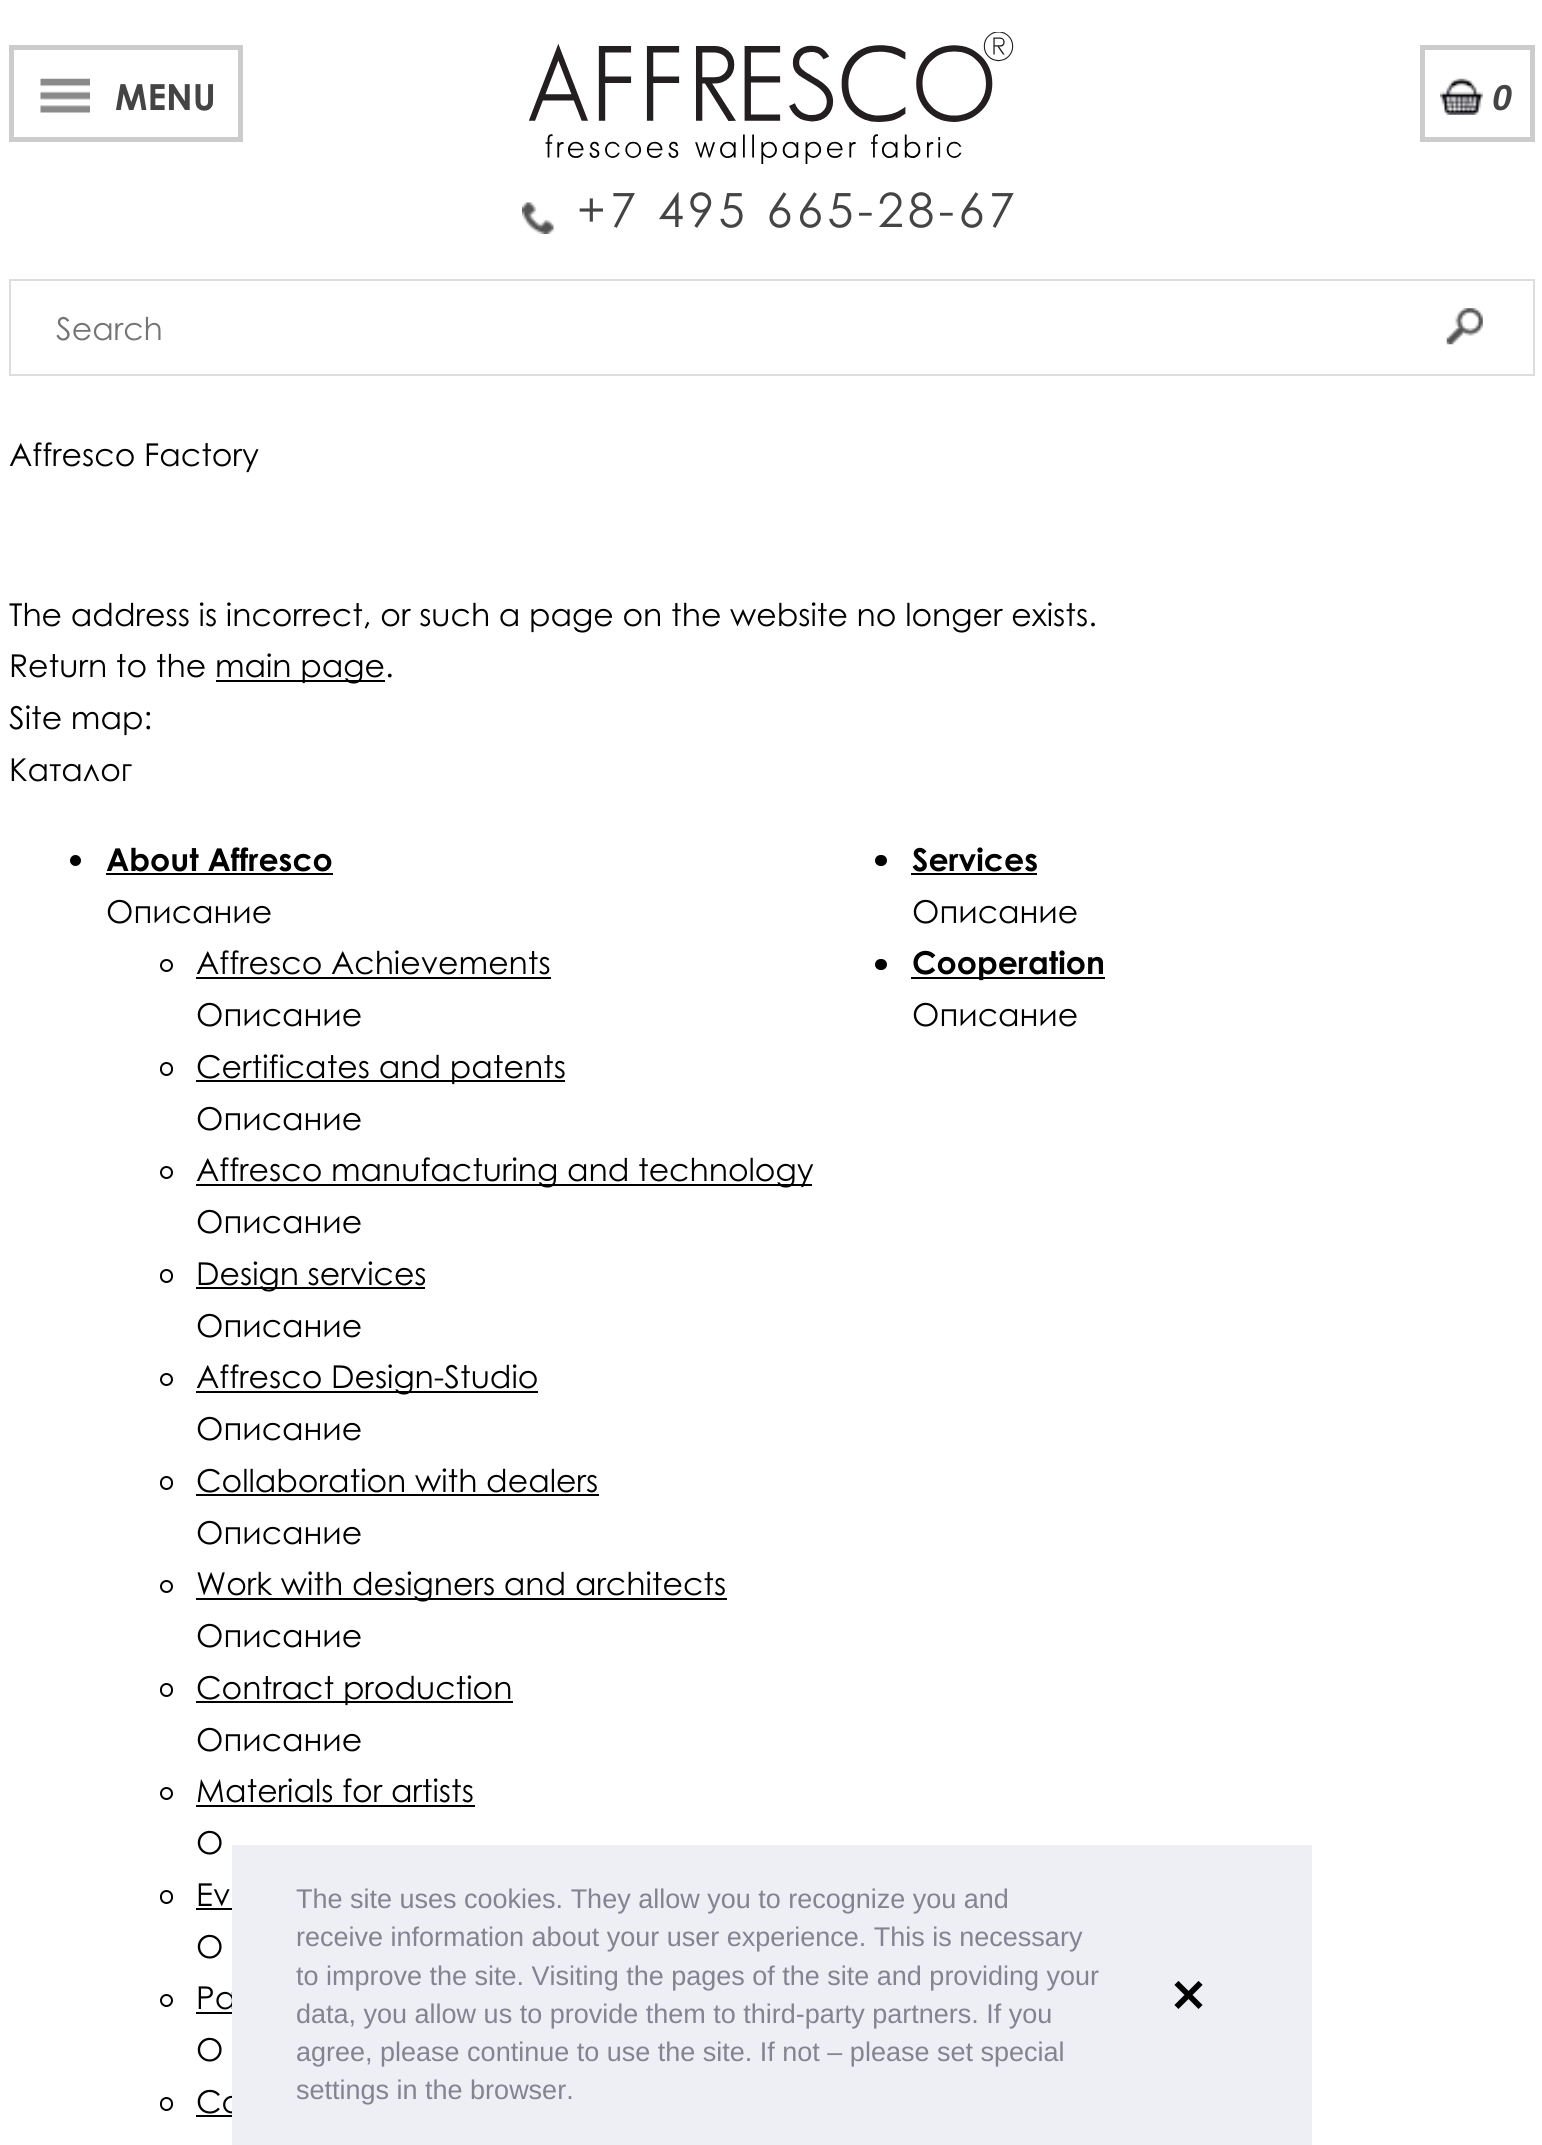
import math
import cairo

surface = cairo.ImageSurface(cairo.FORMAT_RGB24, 1542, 2145)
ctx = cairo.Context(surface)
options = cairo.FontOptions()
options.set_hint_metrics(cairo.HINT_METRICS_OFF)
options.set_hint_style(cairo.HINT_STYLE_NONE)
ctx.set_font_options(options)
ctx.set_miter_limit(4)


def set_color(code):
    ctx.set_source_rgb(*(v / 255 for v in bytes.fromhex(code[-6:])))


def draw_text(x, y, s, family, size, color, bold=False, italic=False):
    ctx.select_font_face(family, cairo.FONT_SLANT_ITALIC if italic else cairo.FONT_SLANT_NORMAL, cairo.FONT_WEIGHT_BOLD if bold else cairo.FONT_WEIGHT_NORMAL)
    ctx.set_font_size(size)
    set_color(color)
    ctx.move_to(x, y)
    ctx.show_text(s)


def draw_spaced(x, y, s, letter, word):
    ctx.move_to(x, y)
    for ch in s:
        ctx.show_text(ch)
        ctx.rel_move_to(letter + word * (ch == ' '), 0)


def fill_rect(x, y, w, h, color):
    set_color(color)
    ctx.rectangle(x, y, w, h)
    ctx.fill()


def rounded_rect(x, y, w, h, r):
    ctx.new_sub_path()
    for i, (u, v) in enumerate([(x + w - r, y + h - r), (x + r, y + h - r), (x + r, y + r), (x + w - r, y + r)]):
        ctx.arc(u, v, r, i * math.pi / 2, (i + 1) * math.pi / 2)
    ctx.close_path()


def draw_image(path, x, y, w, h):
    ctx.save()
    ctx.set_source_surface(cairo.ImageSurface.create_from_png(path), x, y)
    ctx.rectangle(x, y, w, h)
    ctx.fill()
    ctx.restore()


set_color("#ffffff")
ctx.paint()
ctx.rectangle(11.5, 47.5, 229, 92)
set_color("#cccccc")
ctx.set_line_width(5)
ctx.stroke()
draw_image("assets/img1.png", 40, 78, 50, 35)
draw_text(115, 110, "MENU", "Century Gothic", 36, "#444444", bold=True)
draw_image("assets/img2.png", 529, 32, 485, 132)
ctx.rectangle(1422.5, 47.5, 110, 92)
set_color("#cccccc")
ctx.stroke()
draw_image("assets/img3.png", 1440, 78, 43, 37)
draw_text(1492, 110, "0", "Liberation Sans", 36, "#444444", bold=True, italic=True)
draw_image("assets/img4.png", 522, 202, 32, 32)
ctx.select_font_face("Century Gothic")
ctx.set_font_size(47.25)
draw_spaced(577, 227, "+7 495 665-28-67", 4.25, 0)
ctx.rectangle(10, 280, 1524, 95)
set_color("#dddddd")
ctx.set_line_width(2)
ctx.stroke()
draw_text(56, 340, "Search", "Century Gothic", 31.5, "#757575")
draw_image("assets/img5.png", 1446, 308, 37, 37)
draw_text(9, 466, "Affresco Factory", "Century Gothic", 31.5, "#000000")
draw_text(9, 626, "The address is incorrect, or such a page on the website no longer exists.", "Century Gothic", 31.5, "#000000")
draw_text(9, 677, "Return to the", "Century Gothic", 31.5, "#000000")
fill_rect(216, 680, 169, 2, "#000000")
draw_text(215, 677, "main page.", "Century Gothic", 31.5, "#000000")
draw_text(9, 729, "Site map:", "Century Gothic", 31.5, "#000000")
draw_text(9, 781, "Каталог", "Century Gothic", 31.5, "#000000")
ctx.new_path()
ctx.arc(75.5, 860.5, 5.5, 0, 2 * math.pi)
ctx.fill()
draw_text(106, 871, "About Affresco", "Century Gothic", 31.5, "#000000", bold=True)
fill_rect(106, 873, 227, 2, "#000000")
draw_text(106, 923, "Описание", "Century Gothic", 31.5, "#000000")
ctx.new_path()
ctx.arc(166.5, 965.5, 5.5, 0, 2 * math.pi)
ctx.stroke()
draw_text(196, 974, "Affresco Achievements", "Century Gothic", 31.5, "#000000")
fill_rect(196, 977, 355, 2, "#000000")
draw_text(196, 1026, "Описание", "Century Gothic", 31.5, "#000000")
rounded_rect(161, 1063, 11, 12, 5.5)
ctx.stroke()
fill_rect(196, 1080, 369, 2, "#000000")
draw_text(196, 1078, "Certificates and patents", "Century Gothic", 31.5, "#000000")
draw_text(196, 1130, "Описание", "Century Gothic", 31.5, "#000000")
ctx.new_path()
ctx.arc(166.5, 1172.5, 5.5, 0, 2 * math.pi)
ctx.stroke()
fill_rect(196, 1184, 616, 2, "#000000")
draw_text(196, 1181, "Affresco manufacturing and technology", "Century Gothic", 31.5, "#000000")
draw_text(196, 1233, "Описание", "Century Gothic", 31.5, "#000000")
rounded_rect(161, 1270, 11, 12, 5.5)
ctx.stroke()
fill_rect(196, 1287, 229, 2, "#000000")
draw_text(196, 1285, "Design services", "Century Gothic", 31.5, "#000000")
draw_text(196, 1337, "Описание", "Century Gothic", 31.5, "#000000")
ctx.new_path()
ctx.arc(166.5, 1379.5, 5.5, 0, 2 * math.pi)
ctx.stroke()
fill_rect(196, 1391, 342, 2, "#000000")
draw_text(196, 1388, "Affresco Design-Studio", "Century Gothic", 31.5, "#000000")
draw_text(196, 1440, "Описание", "Century Gothic", 31.5, "#000000")
rounded_rect(161, 1477, 11, 12, 5.5)
ctx.stroke()
draw_text(196, 1492, "Collaboration with dealers", "Century Gothic", 31.5, "#000000")
fill_rect(196, 1494, 403, 2, "#000000")
draw_text(196, 1544, "Описание", "Century Gothic", 31.5, "#000000")
ctx.new_path()
ctx.arc(166.5, 1586.5, 5.5, 0, 2 * math.pi)
ctx.stroke()
fill_rect(196, 1598, 531, 2, "#000000")
draw_text(196, 1595, "Work with designers and architects", "Century Gothic", 31.5, "#000000")
draw_text(196, 1647, "Описание", "Century Gothic", 31.5, "#000000")
rounded_rect(161, 1684, 11, 12, 5.5)
ctx.stroke()
fill_rect(196, 1701, 317, 2, "#000000")
draw_text(196, 1699, "Contract production", "Century Gothic", 31.5, "#000000")
draw_text(196, 1751, "Описание", "Century Gothic", 31.5, "#000000")
ctx.new_path()
ctx.arc(166.5, 1793.5, 5.5, 0, 2 * math.pi)
ctx.stroke()
draw_text(196, 1802, "Materials for artists", "Century Gothic", 31.5, "#000000")
fill_rect(196, 1805, 279, 2, "#000000")
draw_text(196, 1854, "О", "Century Gothic", 31.5, "#000000")
rounded_rect(161, 1891, 11, 12, 5.5)
ctx.stroke()
draw_text(196, 1906, "Ev", "Century Gothic", 31.5, "#000000")
fill_rect(196, 1908, 36, 2, "#000000")
draw_text(196, 1958, "О", "Century Gothic", 31.5, "#000000")
ctx.new_path()
ctx.arc(166.5, 2000.5, 5.5, 0, 2 * math.pi)
ctx.stroke()
draw_text(196, 2009, "Pa", "Century Gothic", 31.5, "#000000")
fill_rect(196, 2012, 36, 2, "#000000")
draw_text(196, 2061, "О", "Century Gothic", 31.5, "#000000")
rounded_rect(161, 2098, 11, 12, 5.5)
ctx.stroke()
draw_text(196, 2113, "Co", "Century Gothic", 31.5, "#000000")
fill_rect(196, 2115, 36, 2, "#000000")
rounded_rect(875, 855, 12, 11, 5.5)
ctx.fill()
draw_text(912, 871, "Services", "Century Gothic", 31.5, "#000000", bold=True)
fill_rect(911, 873, 126, 2, "#000000")
draw_text(912, 923, "Описание", "Century Gothic", 31.5, "#000000")
rounded_rect(875, 959, 12, 11, 5.5)
ctx.fill()
fill_rect(911, 977, 194, 2, "#000000")
draw_text(912, 974, "Cooperation", "Century Gothic", 31.5, "#000000", bold=True)
draw_text(912, 1026, "Описание", "Century Gothic", 31.5, "#000000")
fill_rect(232, 1845, 1080, 300, "#edeff5")
draw_text(296, 1908, "The site uses cookies. They allow you to recognize you and", "Liberation Sans", 27, "#838391")
draw_text(296, 1946, "receive information about your user experience. This is necessary", "Liberation Sans", 27, "#838391")
draw_text(296, 1985, "to improve the site. Visiting the pages of the site and providing your", "Liberation Sans", 27, "#838391")
draw_text(296, 2023, "data, you allow us to provide them to third-party partners. If you", "Liberation Sans", 27, "#838391")
draw_text(296, 2061, "agree, please continue to use the site. If not – please set special", "Liberation Sans", 27, "#838391")
draw_text(296, 2099, "settings in the browser.", "Liberation Sans", 27, "#838391")
draw_text(1169, 2012, "✕", "DejaVu Sans", 45, "#000000", bold=True)
surface.write_to_png("output.png")
